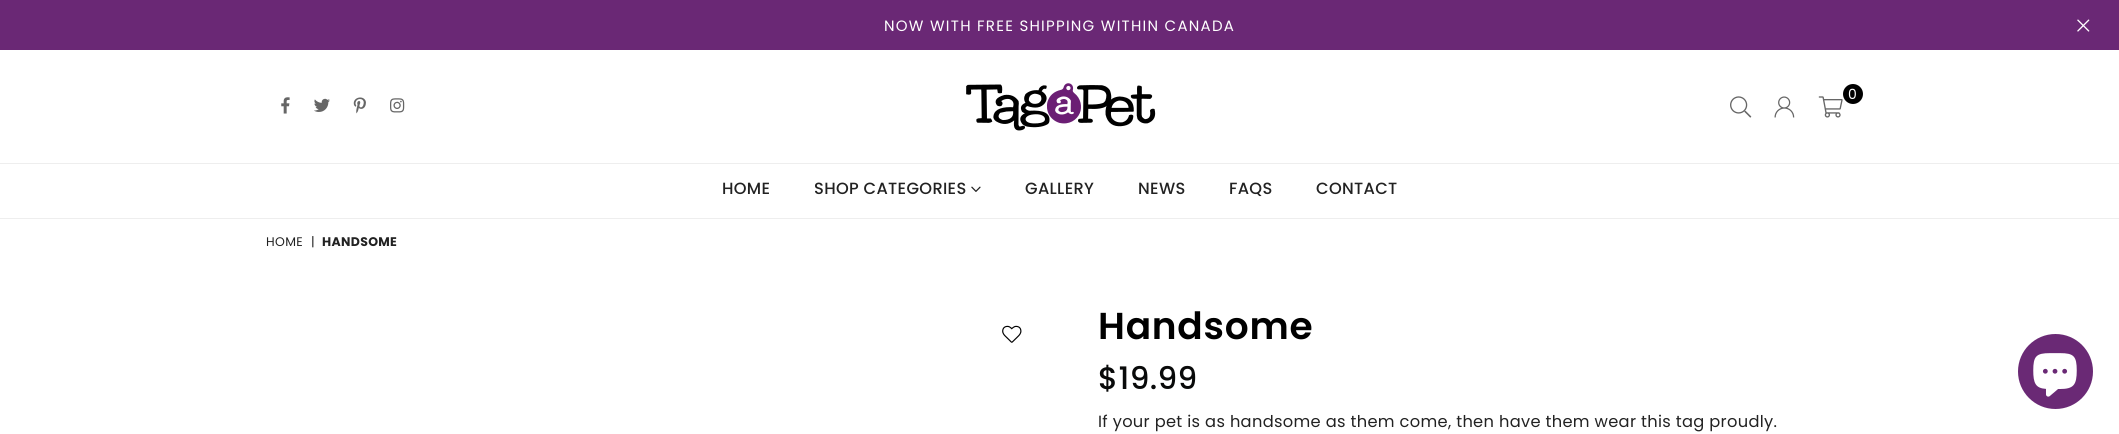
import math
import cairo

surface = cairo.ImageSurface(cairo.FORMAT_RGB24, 2119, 434)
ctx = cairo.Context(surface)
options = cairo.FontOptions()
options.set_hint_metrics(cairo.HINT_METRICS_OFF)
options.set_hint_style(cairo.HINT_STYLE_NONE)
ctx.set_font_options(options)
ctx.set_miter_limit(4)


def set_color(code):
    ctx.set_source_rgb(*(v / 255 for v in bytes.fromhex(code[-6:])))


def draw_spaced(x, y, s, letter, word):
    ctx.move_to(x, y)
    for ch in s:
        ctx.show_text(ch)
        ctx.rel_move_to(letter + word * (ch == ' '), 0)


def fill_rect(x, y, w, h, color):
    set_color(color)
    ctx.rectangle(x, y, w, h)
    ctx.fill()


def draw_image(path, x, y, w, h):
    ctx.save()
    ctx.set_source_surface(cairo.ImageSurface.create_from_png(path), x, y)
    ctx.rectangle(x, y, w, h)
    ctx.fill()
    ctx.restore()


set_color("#ffffff")
ctx.paint()
fill_rect(0, 0, 2119, 50, "#6a2875")
ctx.select_font_face("Poppins")
ctx.set_font_size(15)
set_color("#ffffff")
draw_spaced(884, 31, "NOW WITH FREE SHIPPING WITHIN CANADA", 1.25, 0)
draw_image("assets/img1.png", 2077, 19, 13, 13)
draw_image("assets/img2.png", 966, 83, 190, 48)
set_color("#000000")
ctx.arc(1853, 94, 10, 0, 2 * math.pi)
ctx.fill()
ctx.set_font_size(14)
set_color("#ffffff")
draw_spaced(1848, 99, "0", 0.33, 0)
draw_image("assets/img3.png", 1818, 96, 25, 22)
draw_image("assets/img4.png", 1730, 96, 22, 22)
draw_image("assets/img5.png", 1774, 96, 21, 22)
draw_image("assets/img6.png", 281, 97, 9, 17)
draw_image("assets/img7.png", 314, 98, 16, 14)
draw_image("assets/img8.png", 353, 97, 13, 17)
draw_image("assets/img9.png", 390, 98, 15, 15)
fill_rect(0, 163, 2119, 1, "#eeeeee")
fill_rect(0, 218, 2119, 1, "#eeeeee")
ctx.select_font_face("Poppins Medium")
ctx.set_font_size(16.25)
set_color("#222222")
draw_spaced(722, 194, "HOME", 0.33, 0)
draw_spaced(814, 194, "SHOP CATEGORIES", 0.33, 0)
draw_image("assets/img10.png", 971, 186, 10, 6)
draw_spaced(1025, 194, "GALLERY", 0.33, 0)
draw_spaced(1138, 194, "NEWS", 0.33, 0)
draw_spaced(1229, 194, "FAQS", 0.33, 0)
draw_spaced(1316, 194, "CONTACT", 0.33, 0)
ctx.select_font_face("Poppins")
ctx.set_font_size(12.5)
draw_spaced(266, 246, "HOME", 0.33, 0)
draw_spaced(311, 246, "|", 0.33, 0)
ctx.select_font_face("Poppins", cairo.FONT_SLANT_NORMAL, cairo.FONT_WEIGHT_BOLD)
draw_spaced(322, 246, "HANDSOME", 0.33, 0)
draw_image("assets/img11.png", 1002, 325, 20, 18)
ctx.select_font_face("Poppins SemiBold")
ctx.set_font_size(37.5)
set_color("#000000")
draw_spaced(1098, 339, "Handsome", 0.75, 0)
ctx.select_font_face("Poppins Medium")
ctx.set_font_size(31)
set_color("#090a0a")
draw_spaced(1098, 389, "$19.99", 0.33, 0)
ctx.select_font_face("Poppins")
ctx.set_font_size(16.25)
set_color("#222222")
draw_spaced(1098, 427, "If your pet is as handsome as them come, then have them wear this tag proudly.", 0.33, 0)
set_color("#6a2975")
ctx.new_path()
ctx.arc(2055.5, 371.5, 37.5, 0, 2 * math.pi)
ctx.fill()
draw_image("assets/img12.png", 2033, 353, 44, 44)
surface.write_to_png("output.png")
